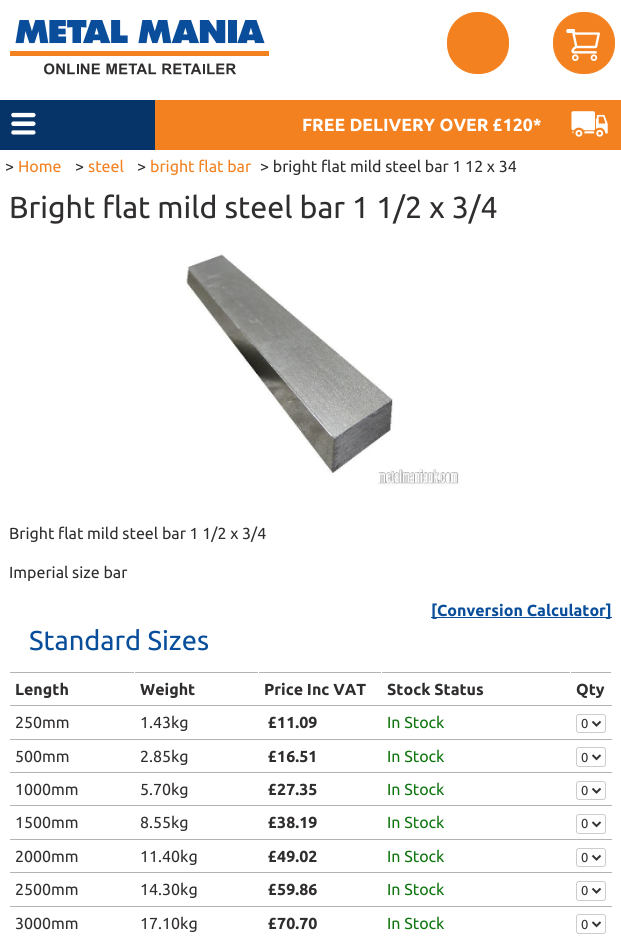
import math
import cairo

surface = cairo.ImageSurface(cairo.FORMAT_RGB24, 621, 939)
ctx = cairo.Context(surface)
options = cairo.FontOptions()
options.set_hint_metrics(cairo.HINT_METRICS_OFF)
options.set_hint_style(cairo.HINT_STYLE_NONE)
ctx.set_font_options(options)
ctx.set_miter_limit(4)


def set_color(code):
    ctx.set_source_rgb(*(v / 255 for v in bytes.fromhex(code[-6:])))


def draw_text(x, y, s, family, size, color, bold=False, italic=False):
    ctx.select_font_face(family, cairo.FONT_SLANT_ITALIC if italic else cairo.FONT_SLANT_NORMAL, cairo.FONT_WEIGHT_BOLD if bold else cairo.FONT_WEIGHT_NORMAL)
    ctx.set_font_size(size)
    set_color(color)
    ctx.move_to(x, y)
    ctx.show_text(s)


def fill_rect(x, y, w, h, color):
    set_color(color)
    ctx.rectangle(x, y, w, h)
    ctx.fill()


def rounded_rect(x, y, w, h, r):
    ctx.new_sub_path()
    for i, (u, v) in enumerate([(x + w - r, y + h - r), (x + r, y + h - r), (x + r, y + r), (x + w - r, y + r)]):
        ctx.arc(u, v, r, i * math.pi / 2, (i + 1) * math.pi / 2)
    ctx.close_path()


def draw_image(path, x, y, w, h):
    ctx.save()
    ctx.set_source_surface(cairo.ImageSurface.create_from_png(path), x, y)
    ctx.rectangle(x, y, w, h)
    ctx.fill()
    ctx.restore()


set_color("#ffffff")
ctx.paint()
draw_image("assets/img1.png", 10, 20, 259, 55)
set_color("#f48120")
rounded_rect(447.5, 12.5, 61, 61, 29.5)
ctx.fill_preserve()
ctx.set_line_width(1)
ctx.stroke()
rounded_rect(553.5, 12.5, 61, 61, 29.5)
ctx.fill_preserve()
ctx.stroke()
draw_image("assets/img2.png", 566, 29, 34, 32)
fill_rect(0, 100, 155, 50, "#063469")
draw_image("assets/img3.png", 11, 112, 25, 23)
fill_rect(155, 100, 466, 50, "#f48120")
draw_image("assets/img4.png", 571, 111, 37, 26)
draw_text(302, 131, "FREE DELIVERY OVER £120*", "Ubuntu", 17.6, "#ffffff", bold=True)
draw_text(5, 172, ">", "Ubuntu", 16, "#302d2d")
draw_text(18, 172, "Home", "Ubuntu", 16, "#f48120")
draw_text(75, 172, ">", "Ubuntu", 16, "#302d2d")
draw_text(88, 172, "steel", "Ubuntu", 16, "#f48120")
draw_text(137, 172, ">", "Ubuntu", 16, "#302d2d")
draw_text(150, 172, "bright flat bar", "Ubuntu", 16, "#f48120")
draw_text(260, 172, "> bright flat mild steel bar 1 12 x 34", "Ubuntu", 16, "#302d2d")
draw_text(9, 218, "Bright flat mild steel bar 1 1/2 x 3/4", "Ubuntu", 30.4, "#302d2d")
draw_image("assets/img5.png", 186, 254, 273, 232)
draw_text(9, 539, "Bright flat mild steel bar 1 1/2 x 3/4", "Ubuntu", 16, "#302d2d")
draw_text(9, 578, "Imperial size bar", "Ubuntu", 16, "#302d2d")
fill_rect(431, 617, 181, 1, "#094e9b")
draw_text(431, 616, "[Conversion Calculator]", "Ubuntu", 16, "#094e9b", bold=True)
draw_text(29, 650, "Standard Sizes", "Ubuntu", 27.25, "#094e9b")
fill_rect(9, 672, 603, 1, "#b3b3b3")
fill_rect(570, 705, 42, 1, "#b3b3b3")
fill_rect(570, 672, 1, 34, "#ffffff")
fill_rect(381, 705, 190, 1, "#b3b3b3")
fill_rect(381, 672, 1, 34, "#ffffff")
fill_rect(258, 705, 124, 1, "#b3b3b3")
fill_rect(258, 672, 1, 34, "#ffffff")
fill_rect(134, 705, 125, 1, "#b3b3b3")
fill_rect(134, 672, 1, 34, "#ffffff")
fill_rect(9, 705, 126, 1, "#b3b3b3")
fill_rect(9, 672, 1, 34, "#ffffff")
draw_text(15, 695, "Length", "Ubuntu", 16, "#302d2d", bold=True)
draw_text(140, 695, "Weight", "Ubuntu", 16, "#302d2d", bold=True)
draw_text(264, 695, "Price Inc VAT", "Ubuntu", 16, "#302d2d", bold=True)
draw_text(387, 695, "Stock Status", "Ubuntu", 16, "#302d2d", bold=True)
fill_rect(611, 672, 1, 1, "#ffffff")
draw_text(576, 695, "Qty", "Ubuntu", 16, "#302d2d", bold=True)
fill_rect(570, 739, 42, 1, "#b3b3b3")
fill_rect(570, 739, 1, 1, "#ffffff")
fill_rect(381, 739, 190, 1, "#b3b3b3")
fill_rect(381, 739, 1, 1, "#ffffff")
fill_rect(258, 739, 124, 1, "#b3b3b3")
fill_rect(258, 739, 1, 1, "#ffffff")
fill_rect(134, 739, 125, 1, "#b3b3b3")
fill_rect(134, 739, 1, 1, "#ffffff")
fill_rect(9, 739, 126, 1, "#b3b3b3")
fill_rect(9, 739, 1, 1, "#ffffff")
draw_text(15, 728, "250mm", "Ubuntu", 16, "#302d2d")
draw_text(140, 728, "1.43kg", "Ubuntu", 16, "#302d2d")
draw_text(268, 728, "£11.09", "Ubuntu", 16, "#302d2d", bold=True)
draw_text(387, 728, "In Stock", "Ubuntu", 16, "#0f750f")
rounded_rect(576.5, 714.5, 29, 18, 2.5)
set_color("#cccccc")
ctx.stroke()
ctx.new_path()
ctx.move_to(592.5, 721.5)
ctx.line_to(596.5, 725.5)
ctx.line_to(600.5, 721.5)
set_color("#333333")
ctx.set_line_width(2)
ctx.stroke()
draw_text(581, 728, "0", "Ubuntu", 13, "#333333")
fill_rect(570, 772, 42, 1, "#b3b3b3")
fill_rect(570, 772, 1, 1, "#ffffff")
fill_rect(381, 772, 190, 1, "#b3b3b3")
fill_rect(381, 772, 1, 1, "#ffffff")
fill_rect(258, 772, 124, 1, "#b3b3b3")
fill_rect(258, 772, 1, 1, "#ffffff")
fill_rect(134, 772, 125, 1, "#b3b3b3")
fill_rect(134, 772, 1, 1, "#ffffff")
fill_rect(9, 772, 126, 1, "#b3b3b3")
fill_rect(9, 772, 1, 1, "#ffffff")
draw_text(15, 762, "500mm", "Ubuntu", 16, "#302d2d")
draw_text(140, 762, "2.85kg", "Ubuntu", 16, "#302d2d")
draw_text(268, 762, "£16.51", "Ubuntu", 16, "#302d2d", bold=True)
draw_text(387, 762, "In Stock", "Ubuntu", 16, "#0f750f")
rounded_rect(576.5, 747.5, 29, 19, 2.5)
set_color("#cccccc")
ctx.set_line_width(1)
ctx.stroke()
ctx.new_path()
ctx.move_to(592.5, 755)
ctx.line_to(596.5, 759)
ctx.line_to(600.5, 755)
set_color("#333333")
ctx.set_line_width(2)
ctx.stroke()
draw_text(581, 762, "0", "Ubuntu", 13, "#333333")
fill_rect(570, 805, 42, 1, "#b3b3b3")
fill_rect(570, 805, 1, 1, "#ffffff")
fill_rect(381, 805, 190, 1, "#b3b3b3")
fill_rect(381, 805, 1, 1, "#ffffff")
fill_rect(258, 805, 124, 1, "#b3b3b3")
fill_rect(258, 805, 1, 1, "#ffffff")
fill_rect(134, 805, 125, 1, "#b3b3b3")
fill_rect(134, 805, 1, 1, "#ffffff")
fill_rect(9, 805, 126, 1, "#b3b3b3")
fill_rect(9, 805, 1, 1, "#ffffff")
draw_text(15, 795, "1000mm", "Ubuntu", 16, "#302d2d")
draw_text(140, 795, "5.70kg", "Ubuntu", 16, "#302d2d")
draw_text(268, 795, "£27.35", "Ubuntu", 16, "#302d2d", bold=True)
draw_text(387, 795, "In Stock", "Ubuntu", 16, "#0f750f")
rounded_rect(576.5, 781.5, 29, 18, 2.5)
set_color("#cccccc")
ctx.set_line_width(1)
ctx.stroke()
ctx.new_path()
ctx.move_to(592.5, 788.5)
ctx.line_to(596.5, 792.5)
ctx.line_to(600.5, 788.5)
set_color("#333333")
ctx.set_line_width(2)
ctx.stroke()
draw_text(581, 795, "0", "Ubuntu", 13, "#333333")
fill_rect(570, 839, 42, 1, "#b3b3b3")
fill_rect(570, 839, 1, 1, "#ffffff")
fill_rect(381, 839, 190, 1, "#b3b3b3")
fill_rect(381, 839, 1, 1, "#ffffff")
fill_rect(258, 839, 124, 1, "#b3b3b3")
fill_rect(258, 839, 1, 1, "#ffffff")
fill_rect(134, 839, 125, 1, "#b3b3b3")
fill_rect(134, 839, 1, 1, "#ffffff")
fill_rect(9, 839, 126, 1, "#b3b3b3")
fill_rect(9, 839, 1, 1, "#ffffff")
draw_text(15, 828, "1500mm", "Ubuntu", 16, "#302d2d")
draw_text(140, 828, "8.55kg", "Ubuntu", 16, "#302d2d")
draw_text(268, 828, "£38.19", "Ubuntu", 16, "#302d2d", bold=True)
draw_text(387, 828, "In Stock", "Ubuntu", 16, "#0f750f")
rounded_rect(576.5, 814.5, 29, 19, 2.5)
set_color("#cccccc")
ctx.set_line_width(1)
ctx.stroke()
ctx.new_path()
ctx.move_to(592.5, 822)
ctx.line_to(596.5, 826)
ctx.line_to(600.5, 822)
set_color("#333333")
ctx.set_line_width(2)
ctx.stroke()
draw_text(581, 828, "0", "Ubuntu", 13, "#333333")
fill_rect(570, 872, 42, 1, "#b3b3b3")
fill_rect(570, 872, 1, 1, "#ffffff")
fill_rect(381, 872, 190, 1, "#b3b3b3")
fill_rect(381, 872, 1, 1, "#ffffff")
fill_rect(258, 872, 124, 1, "#b3b3b3")
fill_rect(258, 872, 1, 1, "#ffffff")
fill_rect(134, 872, 125, 1, "#b3b3b3")
fill_rect(134, 872, 1, 1, "#ffffff")
fill_rect(9, 872, 126, 1, "#b3b3b3")
fill_rect(9, 872, 1, 1, "#ffffff")
draw_text(15, 862, "2000mm", "Ubuntu", 16, "#302d2d")
draw_text(140, 862, "11.40kg", "Ubuntu", 16, "#302d2d")
draw_text(268, 862, "£49.02", "Ubuntu", 16, "#302d2d", bold=True)
draw_text(387, 862, "In Stock", "Ubuntu", 16, "#0f750f")
rounded_rect(576.5, 848.5, 29, 18, 2.5)
set_color("#cccccc")
ctx.set_line_width(1)
ctx.stroke()
ctx.new_path()
ctx.move_to(592.5, 855.5)
ctx.line_to(596.5, 859.5)
ctx.line_to(600.5, 855.5)
set_color("#333333")
ctx.set_line_width(2)
ctx.stroke()
draw_text(581, 862, "0", "Ubuntu", 13, "#333333")
fill_rect(570, 906, 42, 1, "#b3b3b3")
fill_rect(570, 906, 1, 1, "#ffffff")
fill_rect(381, 906, 190, 1, "#b3b3b3")
fill_rect(381, 906, 1, 1, "#ffffff")
fill_rect(258, 906, 124, 1, "#b3b3b3")
fill_rect(258, 906, 1, 1, "#ffffff")
fill_rect(134, 906, 125, 1, "#b3b3b3")
fill_rect(134, 906, 1, 1, "#ffffff")
fill_rect(9, 906, 126, 1, "#b3b3b3")
fill_rect(9, 906, 1, 1, "#ffffff")
draw_text(15, 895, "2500mm", "Ubuntu", 16, "#302d2d")
draw_text(140, 895, "14.30kg", "Ubuntu", 16, "#302d2d")
draw_text(268, 895, "£59.86", "Ubuntu", 16, "#302d2d", bold=True)
draw_text(387, 895, "In Stock", "Ubuntu", 16, "#0f750f")
rounded_rect(576.5, 881.5, 29, 19, 2.5)
set_color("#cccccc")
ctx.set_line_width(1)
ctx.stroke()
ctx.new_path()
ctx.move_to(592.5, 888.5)
ctx.line_to(596.5, 892.5)
ctx.line_to(600.5, 888.5)
set_color("#333333")
ctx.set_line_width(2)
ctx.stroke()
draw_text(581, 895, "0", "Ubuntu", 13, "#333333")
draw_text(15, 929, "3000mm", "Ubuntu", 16, "#302d2d")
draw_text(140, 929, "17.10kg", "Ubuntu", 16, "#302d2d")
draw_text(268, 929, "£70.70", "Ubuntu", 16, "#302d2d", bold=True)
draw_text(387, 929, "In Stock", "Ubuntu", 16, "#0f750f")
rounded_rect(576.5, 914.5, 29, 19, 2.5)
set_color("#cccccc")
ctx.set_line_width(1)
ctx.stroke()
ctx.new_path()
ctx.move_to(592.5, 922)
ctx.line_to(596.5, 926)
ctx.line_to(600.5, 922)
set_color("#333333")
ctx.set_line_width(2)
ctx.stroke()
draw_text(581, 929, "0", "Ubuntu", 13, "#333333")
surface.write_to_png("output.png")
